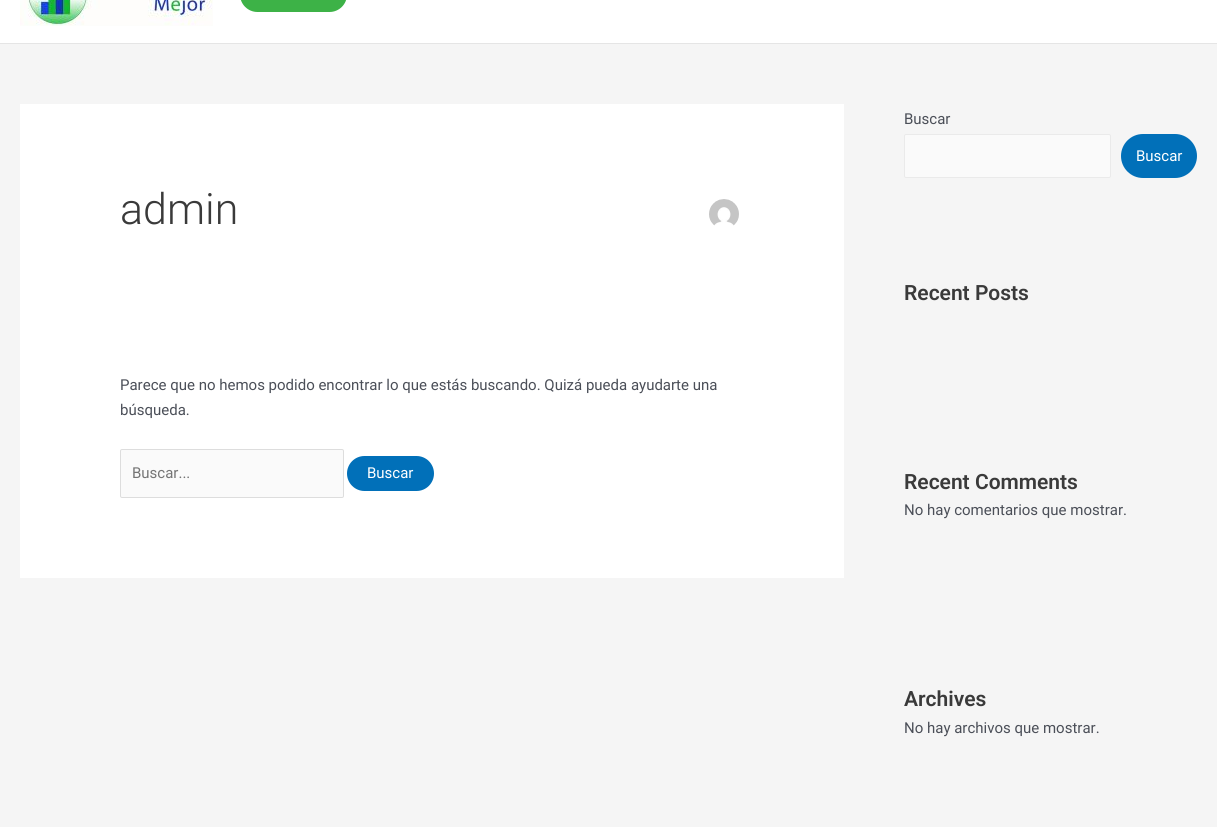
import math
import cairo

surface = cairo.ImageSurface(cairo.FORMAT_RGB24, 1217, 827)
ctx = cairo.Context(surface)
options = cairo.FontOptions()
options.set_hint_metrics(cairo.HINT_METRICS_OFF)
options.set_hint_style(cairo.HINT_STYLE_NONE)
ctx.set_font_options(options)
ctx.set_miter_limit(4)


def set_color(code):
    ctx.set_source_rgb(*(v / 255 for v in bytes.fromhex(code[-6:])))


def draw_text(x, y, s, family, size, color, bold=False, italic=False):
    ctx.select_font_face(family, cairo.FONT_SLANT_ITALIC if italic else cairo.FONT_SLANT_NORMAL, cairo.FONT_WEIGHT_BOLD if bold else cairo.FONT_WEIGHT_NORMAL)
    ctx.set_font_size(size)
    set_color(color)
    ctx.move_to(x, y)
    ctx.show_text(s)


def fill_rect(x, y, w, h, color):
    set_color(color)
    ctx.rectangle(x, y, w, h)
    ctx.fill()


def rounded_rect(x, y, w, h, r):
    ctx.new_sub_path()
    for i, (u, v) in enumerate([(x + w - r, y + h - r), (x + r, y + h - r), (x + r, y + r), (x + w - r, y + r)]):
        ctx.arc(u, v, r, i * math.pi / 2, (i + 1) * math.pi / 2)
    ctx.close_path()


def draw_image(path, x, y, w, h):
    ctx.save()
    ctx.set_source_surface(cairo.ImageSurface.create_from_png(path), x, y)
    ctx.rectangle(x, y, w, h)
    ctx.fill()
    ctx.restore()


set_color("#f5f5f5")
ctx.paint()
fill_rect(0, 0, 1217, 43, "#ffffff")
fill_rect(0, 43, 1217, 1, "#e5e5e5")
draw_image("assets/img1.png", 20, 0, 193, 26)
set_color("#3db247")
rounded_rect(240, -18, 107, 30, 17.5)
ctx.fill()
fill_rect(20, 104, 824, 474, "#ffffff")
draw_text(120, 224, "admin", "Roboto Light", 43, "#3a3a3a")
draw_image("assets/img2.png", 709, 199, 30, 27)
draw_text(120, 390, "Parece que no hemos podido encontrar lo que estás buscando. Quizá pueda ayudarte una", "Roboto", 15, "#4b4f58")
draw_text(120, 415, "búsqueda.", "Roboto", 15, "#4b4f58")
set_color("#fafafa")
rounded_rect(120.5, 449.5, 223, 48, 1.5)
ctx.fill_preserve()
set_color("#dddddd")
ctx.set_line_width(1)
ctx.stroke()
draw_text(132, 478, "Buscar...", "Roboto", 15, "#757575")
set_color("#0170b9")
rounded_rect(347, 456, 87, 35, 17.5)
ctx.fill()
draw_text(367, 478, "Buscar", "Roboto", 15, "#ffffff")
draw_text(904, 124, "Buscar", "Roboto", 15, "#4b4f58")
set_color("#fafafa")
rounded_rect(904.5, 134.5, 206, 43, 1.5)
ctx.fill_preserve()
set_color("#eaeaea")
ctx.stroke()
set_color("#0170b9")
rounded_rect(1121, 134, 76, 44, 22)
ctx.fill()
draw_text(1136, 161, "Buscar", "Roboto", 15, "#ffffff")
draw_text(904, 300, "Recent Posts", "Roboto SemiBold", 21, "#3a3a3a")
draw_text(904, 489, "Recent Comments", "Roboto SemiBold", 21, "#3a3a3a")
draw_text(904, 515, "No hay comentarios que mostrar.", "Roboto", 15, "#4b4f58")
draw_text(904, 706, "Archives", "Roboto SemiBold", 21, "#3a3a3a")
draw_text(904, 733, "No hay archivos que mostrar.", "Roboto", 15, "#4b4f58")
surface.write_to_png("output.png")
